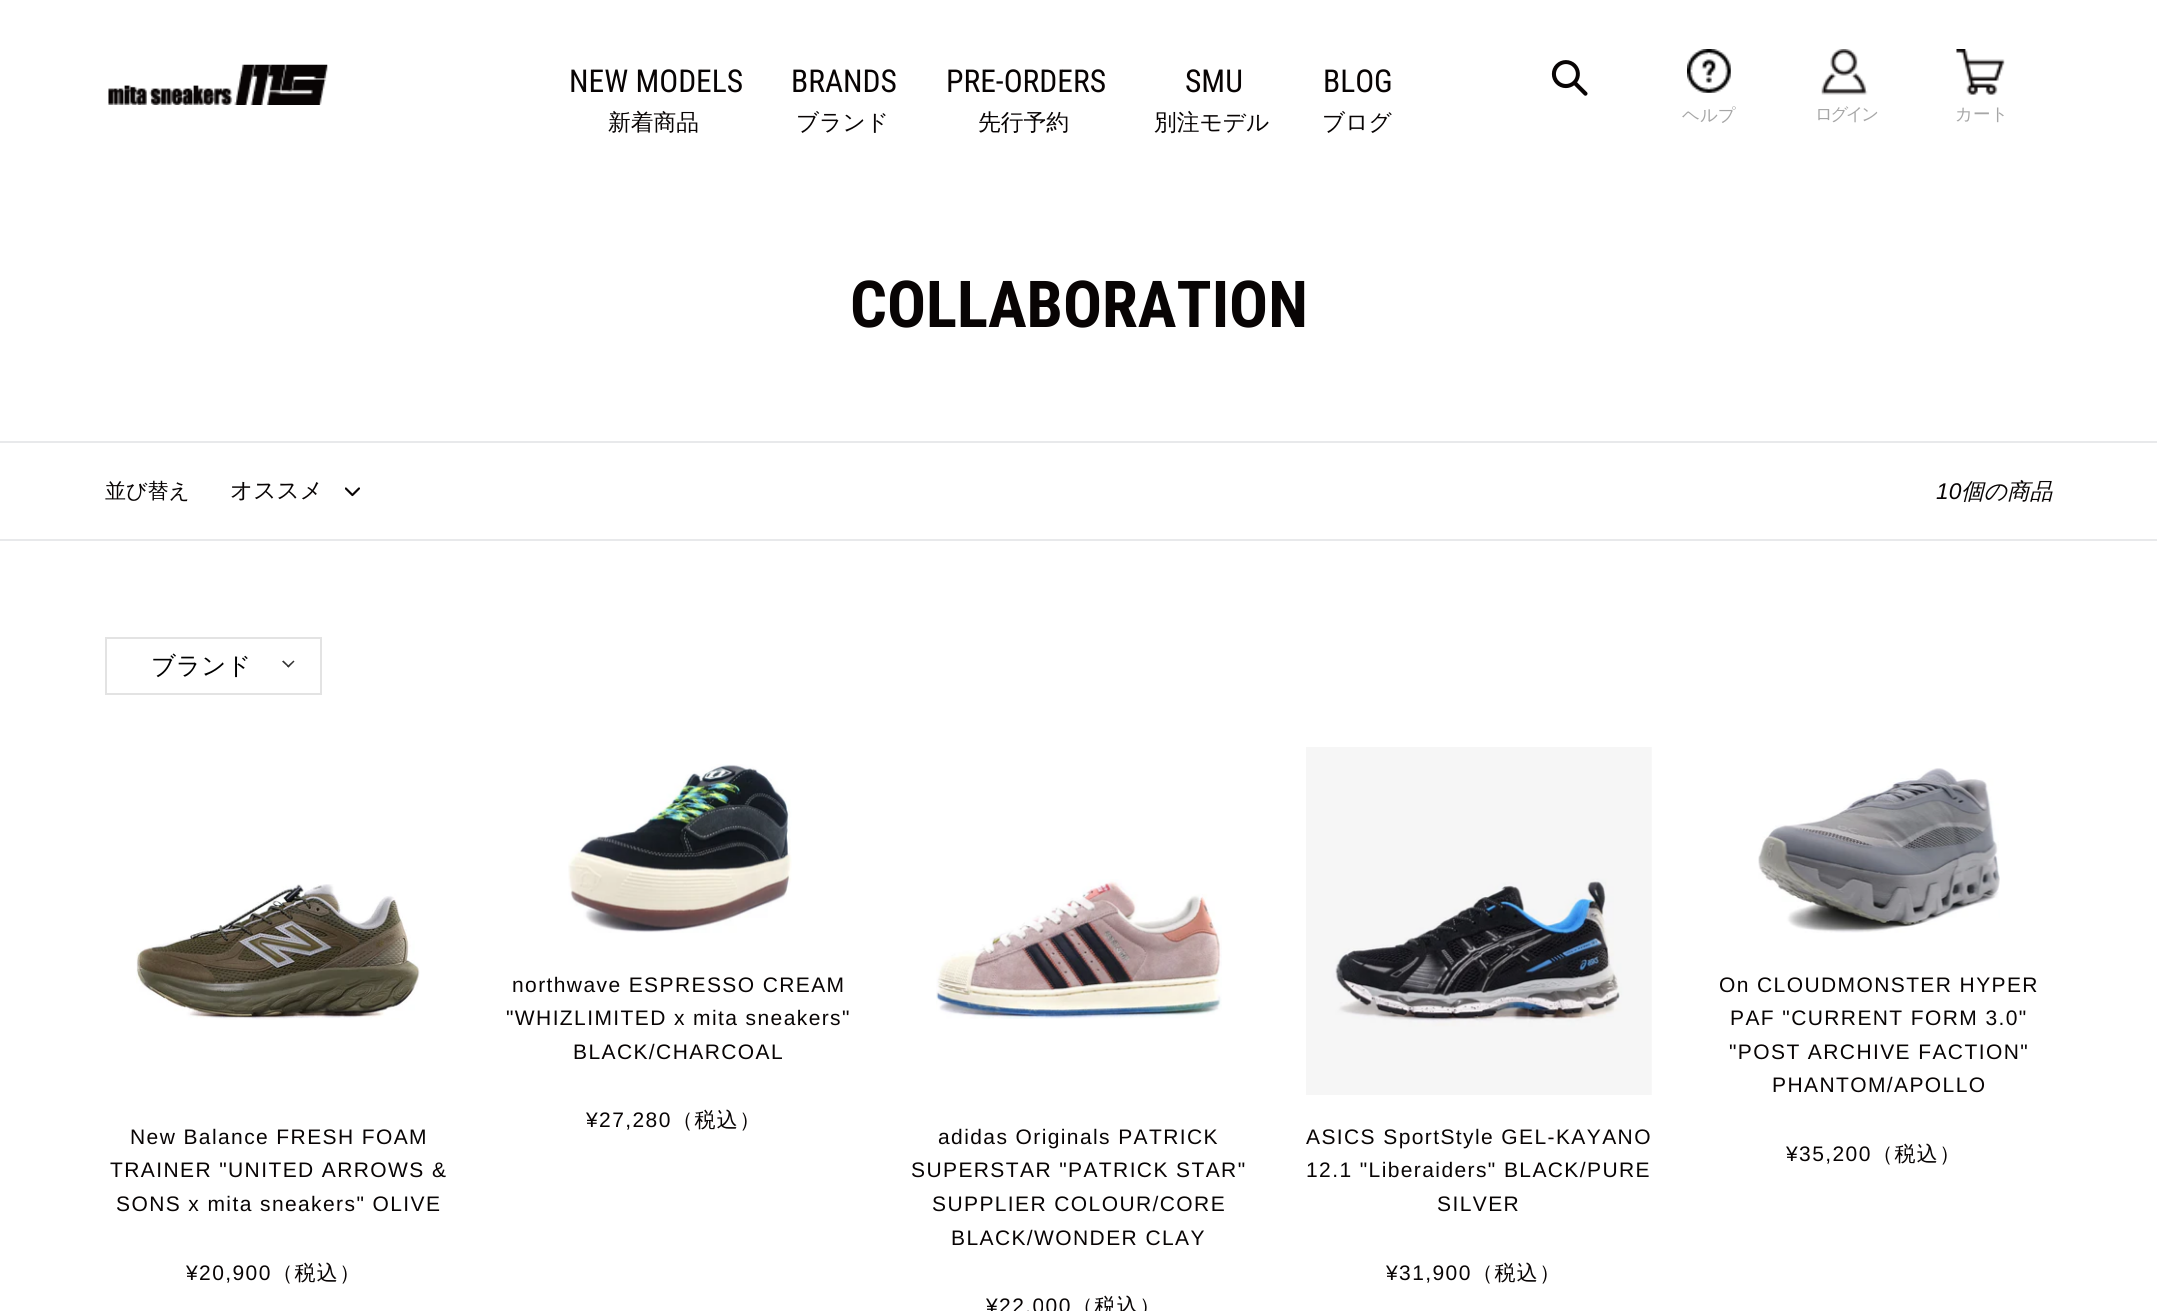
import math
import cairo

surface = cairo.ImageSurface(cairo.FORMAT_RGB24, 2157, 1311)
ctx = cairo.Context(surface)
options = cairo.FontOptions()
options.set_hint_metrics(cairo.HINT_METRICS_OFF)
options.set_hint_style(cairo.HINT_STYLE_NONE)
ctx.set_font_options(options)
ctx.set_miter_limit(4)


def set_color(code):
    ctx.set_source_rgb(*(v / 255 for v in bytes.fromhex(code[-6:])))


def draw_text(x, y, s, family, size, color, bold=False, italic=False):
    ctx.select_font_face(family, cairo.FONT_SLANT_ITALIC if italic else cairo.FONT_SLANT_NORMAL, cairo.FONT_WEIGHT_BOLD if bold else cairo.FONT_WEIGHT_NORMAL)
    ctx.set_font_size(size)
    set_color(color)
    ctx.move_to(x, y)
    ctx.show_text(s)


def draw_spaced(x, y, s, letter, word):
    ctx.move_to(x, y)
    for ch in s:
        ctx.show_text(ch)
        ctx.rel_move_to(letter + word * (ch == ' '), 0)


def fill_rect(x, y, w, h, color):
    set_color(color)
    ctx.rectangle(x, y, w, h)
    ctx.fill()


def draw_image(path, x, y, w, h):
    ctx.save()
    ctx.set_source_surface(cairo.ImageSurface.create_from_png(path), x, y)
    ctx.rectangle(x, y, w, h)
    ctx.fill()
    ctx.restore()


set_color("#ffffff")
ctx.paint()
draw_image("assets/img1.png", 108, 64, 220, 41)
draw_text(569, 92, "NEW MODELS", "Roboto Condensed", 31.5, "#080404")
draw_text(608, 130, "新着商品", "WenQuanYi Zen Hei Medium", 22.75, "#080404")
draw_text(791, 92, "BRANDS", "Roboto Condensed", 31.5, "#080404")
draw_text(796, 130, "ブランド", "WenQuanYi Zen Hei Medium", 22.75, "#080404")
draw_text(946, 92, "PRE-ORDERS", "Roboto Condensed", 31.5, "#080404")
draw_text(978, 130, "先行予約", "WenQuanYi Zen Hei Medium", 22.75, "#080404")
draw_text(1185, 92, "SMU", "Roboto Condensed", 31.5, "#080404")
draw_text(1154, 130, "別注モデル", "WenQuanYi Zen Hei Medium", 22.75, "#080404")
draw_text(1323, 92, "BLOG", "Roboto Condensed", 31.5, "#080404")
draw_text(1322, 130, "ブログ", "WenQuanYi Zen Hei Medium", 22.75, "#080404")
draw_image("assets/img2.png", 1551, 60, 37, 36)
draw_image("assets/img3.png", 1687, 49, 44, 44)
draw_text(1682, 121, "ヘルプ", "WenQuanYi Zen Hei Medium", 17.5, "#a6a6a6")
draw_image("assets/img4.png", 1821, 49, 47, 46)
draw_spaced(1815, 120, "ログイン", -2.5, 0)
draw_image("assets/img5.png", 1956, 49, 49, 46)
draw_text(1955, 120, "カート", "WenQuanYi Zen Hei Medium", 17.5, "#a6a6a6")
draw_text(850, 327, "COLLABORATION", "Roboto Condensed", 64.75, "#080404", bold=True)
fill_rect(0, 441, 2157, 2, "#e8e9eb")
fill_rect(0, 539, 2157, 2, "#e8e9eb")
draw_text(105, 498, "並び替え", "WenQuanYi Zen Hei Medium", 21, "#080404")
draw_text(230, 498, "オススメ", "WenQuanYi Zen Hei Medium", 22.75, "#080404")
draw_image("assets/img6.png", 345, 487, 15, 10)
draw_text(1936, 499, "10", "Liberation Sans", 22.75, "#080404", italic=True)
draw_text(1961, 499, "個の商品", "WenQuanYi Zen Hei Medium", 22.75, "#080404", italic=True)
ctx.rectangle(106, 638, 215, 56)
set_color("#e3e3e3")
ctx.stroke()
draw_text(151, 674, "ブランド", "WenQuanYi Zen Hei Medium", 24.5, "#000000")
set_color("#333333")
ctx.new_path()
ctx.move_to(293.5, 660.5)
ctx.line_to(294.5, 661.5)
ctx.line_to(288.5, 667.5)
ctx.line_to(287, 666.5)
ctx.close_path()
ctx.fill()
ctx.new_path()
ctx.move_to(283.5, 660.5)
ctx.line_to(289.5, 666.5)
ctx.line_to(288.5, 667.5)
ctx.line_to(282, 661.5)
ctx.close_path()
ctx.fill()
draw_image("assets/img7.png", 568, 764, 224, 169)
ctx.select_font_face("Liberation Sans")
ctx.set_font_size(21)
set_color("#080404")
draw_spaced(512, 992, "northwave ESPRESSO CREAM", 1.4, 0)
draw_spaced(506, 1025, "\"WHIZLIMITED x mita sneakers\"", 1.4, 0)
draw_spaced(573, 1059, "BLACK/CHARCOAL", 1.4, 0)
draw_spaced(586, 1127, "¥27,280", 1.4, 0)
ctx.select_font_face("WenQuanYi Zen Hei Medium")
draw_spaced(672, 1127, "（税込）", 1.4, 0)
draw_image("assets/img8.png", 1758, 768, 242, 165)
ctx.select_font_face("Liberation Sans")
draw_spaced(1719, 992, "On CLOUDMONSTER HYPER", 1.4, 0)
draw_spaced(1730, 1025, "PAF \"CURRENT FORM 3.0\"", 1.4, 0)
draw_spaced(1729, 1059, "\"POST ARCHIVE FACTION\"", 1.4, 0)
draw_spaced(1772, 1092, "PHANTOM/APOLLO", 1.4, 0)
draw_spaced(1786, 1161, "¥35,200", 1.4, 0)
ctx.select_font_face("WenQuanYi Zen Hei Medium")
draw_spaced(1872, 1161, "（税込）", 1.4, 0)
draw_image("assets/img9.png", 136, 884, 284, 136)
ctx.select_font_face("Liberation Sans")
draw_spaced(130, 1144, "New Balance FRESH FOAM", 1.4, 0)
draw_spaced(110, 1177, "TRAINER \"UNITED ARROWS &", 1.4, 0)
draw_spaced(116, 1211, "SONS x mita sneakers\" OLIVE", 1.4, 0)
draw_spaced(186, 1280, "¥20,900", 1.4, 0)
ctx.select_font_face("WenQuanYi Zen Hei Medium")
draw_spaced(272, 1280, "（税込）", 1.4, 0)
draw_image("assets/img10.png", 936, 879, 286, 140)
ctx.select_font_face("Liberation Sans")
draw_spaced(938, 1144, "adidas Originals PATRICK", 1.4, 0)
draw_spaced(911, 1177, "SUPERSTAR \"PATRICK STAR\"", 1.4, 0)
draw_spaced(932, 1211, "SUPPLIER COLOUR/CORE", 1.4, 0)
draw_spaced(951, 1245, "BLACK/WONDER CLAY", 1.4, 0)
draw_spaced(986, 1313, "¥22,000", 1.4, 0)
ctx.select_font_face("WenQuanYi Zen Hei Medium")
draw_spaced(1072, 1313, "（税込）", 1.4, 0)
draw_image("assets/img11.png", 1306, 747, 346, 348)
ctx.select_font_face("Liberation Sans")
draw_spaced(1306, 1144, "ASICS SportStyle GEL-KAYANO", 1.4, 0)
draw_spaced(1306, 1177, "12.1 \"Liberaiders\" BLACK/PURE", 1.4, 0)
draw_spaced(1437, 1211, "SILVER", 1.4, 0)
draw_spaced(1386, 1280, "¥31,900", 1.4, 0)
ctx.select_font_face("WenQuanYi Zen Hei Medium")
draw_spaced(1472, 1280, "（税込）", 1.4, 0)
surface.write_to_png("output.png")
